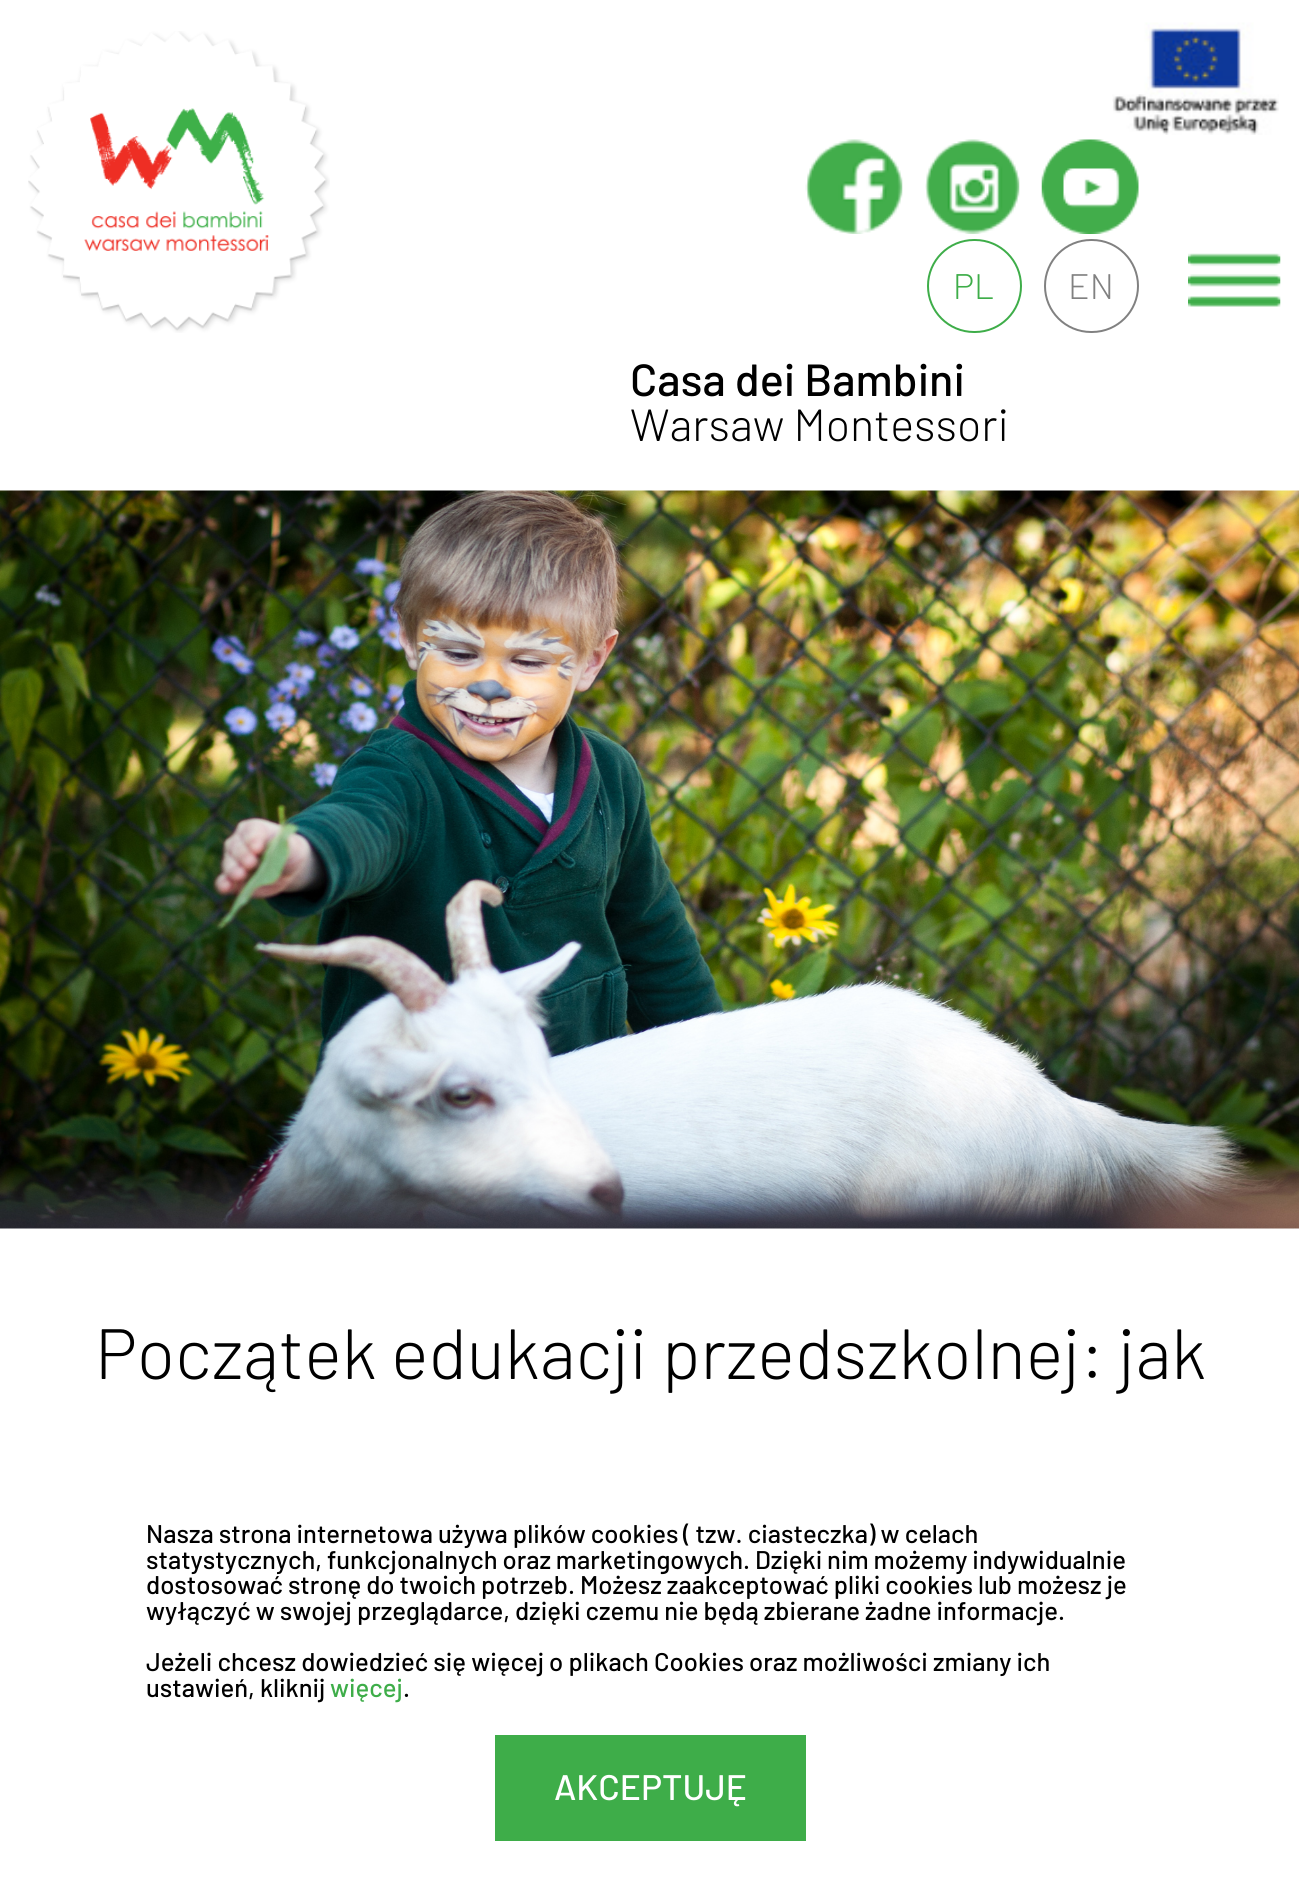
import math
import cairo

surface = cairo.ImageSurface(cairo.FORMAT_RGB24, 1299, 1878)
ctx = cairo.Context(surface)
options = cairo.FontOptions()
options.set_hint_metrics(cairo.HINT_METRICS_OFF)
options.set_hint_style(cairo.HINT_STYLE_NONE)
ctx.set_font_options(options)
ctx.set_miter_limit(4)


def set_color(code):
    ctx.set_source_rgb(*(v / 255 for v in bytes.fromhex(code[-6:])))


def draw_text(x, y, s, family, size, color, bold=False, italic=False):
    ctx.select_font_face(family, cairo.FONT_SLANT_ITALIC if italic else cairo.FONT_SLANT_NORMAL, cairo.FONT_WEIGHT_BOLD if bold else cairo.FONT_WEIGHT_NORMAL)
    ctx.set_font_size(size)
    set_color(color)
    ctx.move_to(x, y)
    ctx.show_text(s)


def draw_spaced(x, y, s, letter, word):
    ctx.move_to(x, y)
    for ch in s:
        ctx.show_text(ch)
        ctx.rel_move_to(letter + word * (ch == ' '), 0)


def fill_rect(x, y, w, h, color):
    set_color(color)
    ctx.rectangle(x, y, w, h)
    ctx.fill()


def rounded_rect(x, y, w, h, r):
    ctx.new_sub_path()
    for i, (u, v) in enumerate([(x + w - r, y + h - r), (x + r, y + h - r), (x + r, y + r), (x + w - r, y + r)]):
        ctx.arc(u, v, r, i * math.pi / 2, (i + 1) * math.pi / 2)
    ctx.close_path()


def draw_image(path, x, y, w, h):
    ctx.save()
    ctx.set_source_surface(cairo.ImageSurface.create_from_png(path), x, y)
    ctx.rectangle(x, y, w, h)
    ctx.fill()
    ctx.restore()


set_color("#ffffff")
ctx.paint()
draw_image("assets/img1.png", 28, 31, 302, 302)
draw_image("assets/img2.png", 805, 139, 98, 95)
draw_image("assets/img3.png", 925, 139, 95, 95)
draw_image("assets/img4.png", 1041, 139, 98, 95)
draw_image("assets/img5.png", 1112, 22, 167, 113)
rounded_rect(928, 240, 93, 92, 46)
set_color("#3ead49")
ctx.stroke()
draw_text(953, 299, "PL", "Barlow Light", 35.5, "#3ead49")
rounded_rect(1045, 240, 93, 92, 46)
set_color("#818181")
ctx.stroke()
draw_text(1068, 299, "EN", "Barlow Light", 35.5, "#818181")
draw_image("assets/img6.png", 1188, 253, 93, 54)
draw_text(630, 396, "Casa dei Bambini", "Barlow Medium", 45, "#000000")
draw_text(630, 441, "Warsaw Montessori", "Barlow Light", 45, "#000000")
draw_image("assets/img7.png", 0, 490, 1299, 739)
draw_text(95, 1379, "Początek edukacji przedszkolnej: jak", "Barlow Light", 70.9, "#000000")
ctx.select_font_face("Barlow Medium")
ctx.set_font_size(25.6)
draw_spaced(146, 1543, "Nasza strona internetowa używa plików cookies", 0, -0.1)
draw_text(683, 1543, "( tzw. ciasteczka) w celach", "Barlow Medium", 25.6, "#000000")
draw_spaced(146, 1569, "statystycznych, funkcjonalnych oraz marketingowych. Dzięki nim możemy indywidualnie", 0, -0.25)
draw_spaced(146, 1594, "dostosować stronę do twoich potrzeb. Możesz zaakceptować pliki cookies lub możesz je", 0, -0.1)
draw_spaced(146, 1620, "wyłączyć w swojej przeglądarce, dzięki czemu nie będą zbierane żadne informacje.", 0, -0.1)
draw_text(146, 1671, "Jeżeli chcesz dowiedzieć się więcej o plikach Cookies oraz możliwości zmiany ich", "Barlow Medium", 25.6, "#000000")
draw_text(146, 1697, "ustawień, kliknij", "Barlow Medium", 25.6, "#000000")
draw_text(330, 1697, "więcej", "Barlow Medium", 25.6, "#3ead49")
draw_text(403, 1697, ".", "Barlow Medium", 25.6, "#000000")
fill_rect(495, 1735, 311, 106, "#3ead49")
draw_text(554, 1800, "AKCEPTUJĘ", "Barlow Medium", 35.5, "#ffffff")
surface.write_to_png("output.png")
